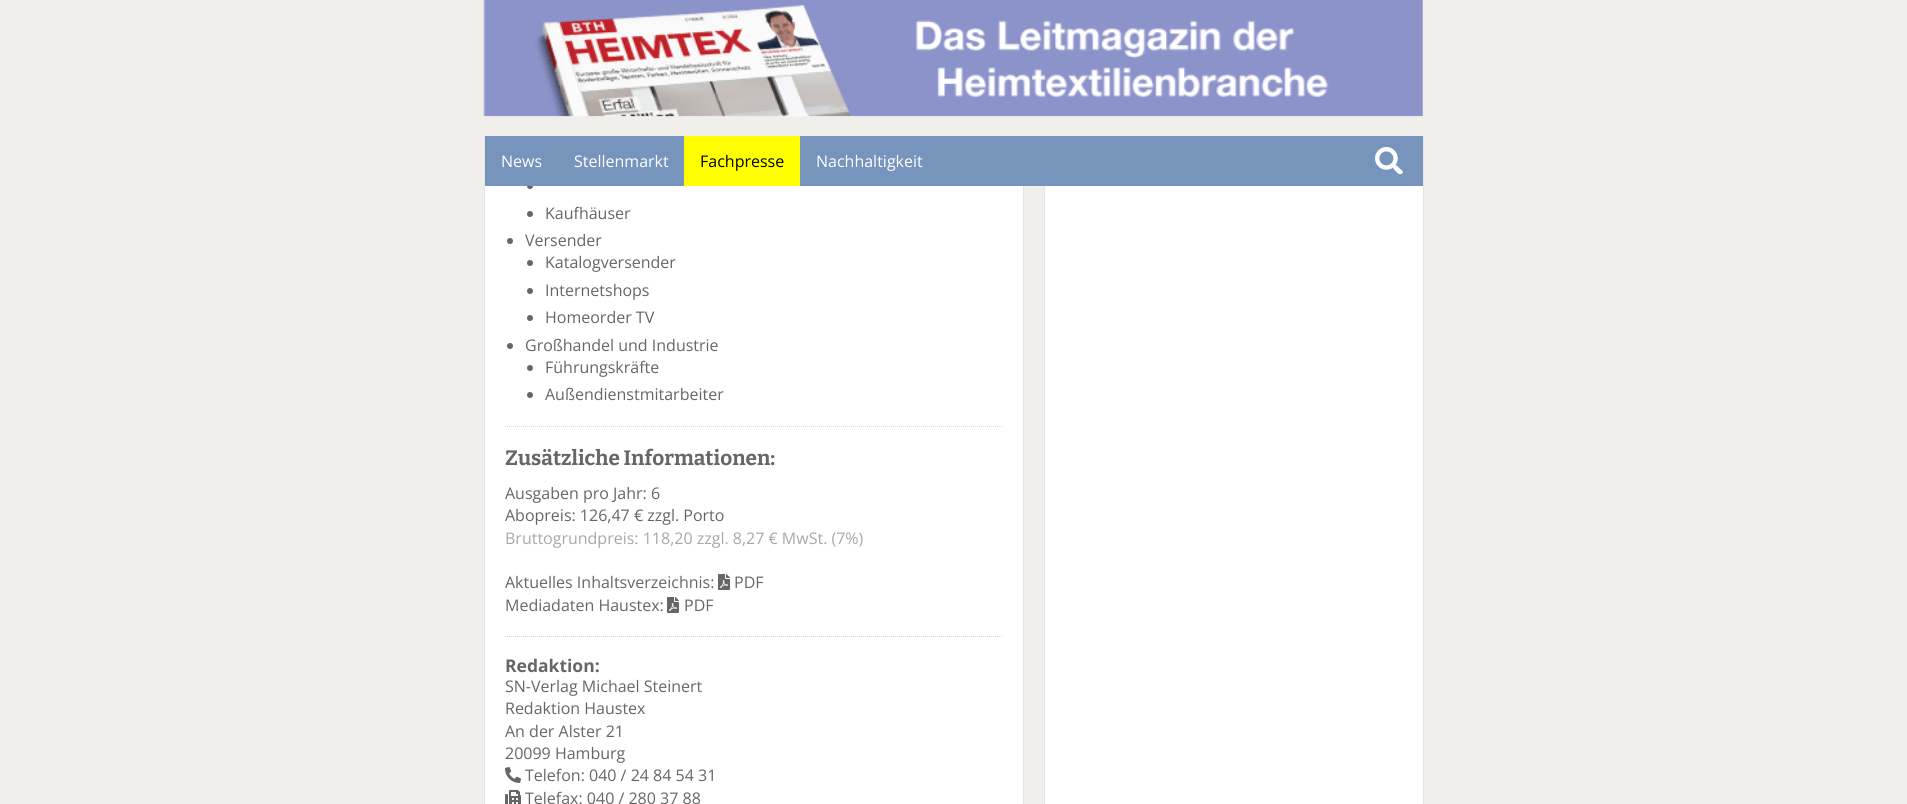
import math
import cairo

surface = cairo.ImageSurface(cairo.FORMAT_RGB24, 1907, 804)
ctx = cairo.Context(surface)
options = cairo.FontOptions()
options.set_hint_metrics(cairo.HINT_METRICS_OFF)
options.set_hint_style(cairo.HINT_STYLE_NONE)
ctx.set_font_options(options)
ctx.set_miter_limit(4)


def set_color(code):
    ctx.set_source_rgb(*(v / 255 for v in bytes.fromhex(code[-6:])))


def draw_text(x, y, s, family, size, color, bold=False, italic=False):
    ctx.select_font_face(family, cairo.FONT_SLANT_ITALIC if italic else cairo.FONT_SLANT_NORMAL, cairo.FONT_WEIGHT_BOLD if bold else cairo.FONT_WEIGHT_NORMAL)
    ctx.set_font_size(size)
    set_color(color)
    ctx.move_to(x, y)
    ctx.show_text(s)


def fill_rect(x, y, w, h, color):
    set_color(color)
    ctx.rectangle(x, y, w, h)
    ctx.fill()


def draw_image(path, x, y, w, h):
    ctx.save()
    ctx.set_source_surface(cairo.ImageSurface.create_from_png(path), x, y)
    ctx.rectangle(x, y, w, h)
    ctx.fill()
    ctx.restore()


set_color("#f1efec")
ctx.paint()
fill_rect(485, 186, 538, 618, "#ffffff")
ctx.rectangle(484.5, -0.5, 539, 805)
set_color("#e5e5e5")
ctx.set_line_width(1)
ctx.stroke()
fill_rect(1045, 186, 378, 618, "#ffffff")
ctx.rectangle(1044.5, -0.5, 379, 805)
set_color("#e5e5e5")
ctx.stroke()
fill_rect(484, 0, 940, 136, "#f1efec")
draw_image("assets/img1.png", 483, 0, 940, 117)
set_color("#666666")
ctx.arc(530, 186, 3, 0, 2 * math.pi)
ctx.fill()
fill_rect(485, 136, 938, 50, "#7694bc")
draw_text(501, 167, "News", "Open Sans", 16, "#ffffff")
draw_text(574, 167, "Stellenmarkt", "Open Sans", 16, "#ffffff")
fill_rect(684, 136, 116, 50, "#ffff00")
draw_text(700, 167, "Fachpresse", "Open Sans", 16, "#000000")
draw_text(816, 167, "Nachhaltigkeit", "Open Sans", 16, "#ffffff")
draw_image("assets/img2.png", 1375, 147, 28, 27)
set_color("#666666")
ctx.arc(530, 214, 3, 0, 2 * math.pi)
ctx.fill()
draw_text(545, 219, "Kaufhäuser", "Open Sans", 16, "#666666")
ctx.new_path()
ctx.arc(510, 241, 3, 0, 2 * math.pi)
ctx.fill()
draw_text(525, 246, "Versender", "Open Sans", 16, "#666666")
ctx.new_path()
ctx.arc(530, 263, 3, 0, 2 * math.pi)
ctx.fill()
draw_text(545, 268, "Katalogversender", "Open Sans", 16, "#666666")
ctx.new_path()
ctx.arc(530, 291, 3, 0, 2 * math.pi)
ctx.fill()
draw_text(545, 296, "Internetshops", "Open Sans", 16, "#666666")
ctx.new_path()
ctx.arc(530, 318, 3, 0, 2 * math.pi)
ctx.fill()
draw_text(545, 323, "Homeorder TV", "Open Sans", 16, "#666666")
ctx.new_path()
ctx.arc(510, 346, 3, 0, 2 * math.pi)
ctx.fill()
draw_text(525, 351, "Großhandel und Industrie", "Open Sans", 16, "#666666")
ctx.new_path()
ctx.arc(530, 368, 3, 0, 2 * math.pi)
ctx.fill()
draw_text(545, 373, "Führungskräfte", "Open Sans", 16, "#666666")
ctx.new_path()
ctx.arc(530, 395, 3, 0, 2 * math.pi)
ctx.fill()
draw_text(545, 400, "Außendienstmitarbeiter", "Open Sans", 16, "#666666")
ctx.new_path()
ctx.move_to(505, 426.5)
ctx.line_to(1003, 426.5)
set_color("#d3d3d3")
ctx.set_dash([1, 1])
ctx.stroke()
draw_text(505, 465, "Zusätzliche Informationen:", "Bitter", 20.75, "#666666", bold=True)
draw_text(505, 499, "Ausgaben pro Jahr: 6", "Open Sans", 16, "#666666")
draw_text(505, 521, "Abopreis: 126,47 € zzgl. Porto", "Open Sans", 16, "#666666")
draw_text(505, 544, "Bruttogrundpreis: 118,20 zzgl. 8,27 € MwSt. (7%)", "Open Sans", 16, "#a8a8a8")
draw_text(505, 588, "Aktuelles Inhaltsverzeichnis:", "Open Sans", 16, "#666666")
draw_image("assets/img3.png", 718, 574, 12, 16)
draw_text(734, 588, "PDF", "Open Sans", 16, "#666666")
draw_text(505, 611, "Mediadaten Haustex:", "Open Sans", 16, "#666666")
draw_image("assets/img3.png", 667, 597, 12, 16)
draw_text(684, 611, "PDF", "Open Sans", 16, "#666666")
ctx.new_path()
ctx.move_to(505, 636.5)
ctx.line_to(1003, 636.5)
set_color("#d3d3d3")
ctx.stroke()
draw_text(505, 672, "Redaktion:", "Open Sans", 17.5, "#666666", bold=True)
draw_text(505, 692, "SN-Verlag Michael Steinert", "Open Sans", 16, "#666666")
draw_text(505, 714, "Redaktion Haustex", "Open Sans", 16, "#666666")
draw_text(505, 737, "An der Alster 21", "Open Sans", 16, "#666666")
draw_text(505, 759, "20099 Hamburg", "Open Sans", 16, "#666666")
draw_image("assets/img4.png", 505, 767, 16, 16)
draw_text(525, 781, "Telefon: 040 / 24 84 54 31", "Open Sans", 16, "#666666")
draw_image("assets/img5.png", 505, 790, 16, 14)
draw_text(525, 804, "Telefax: 040 / 280 37 88", "Open Sans", 16, "#666666")
surface.write_to_png("output.png")
